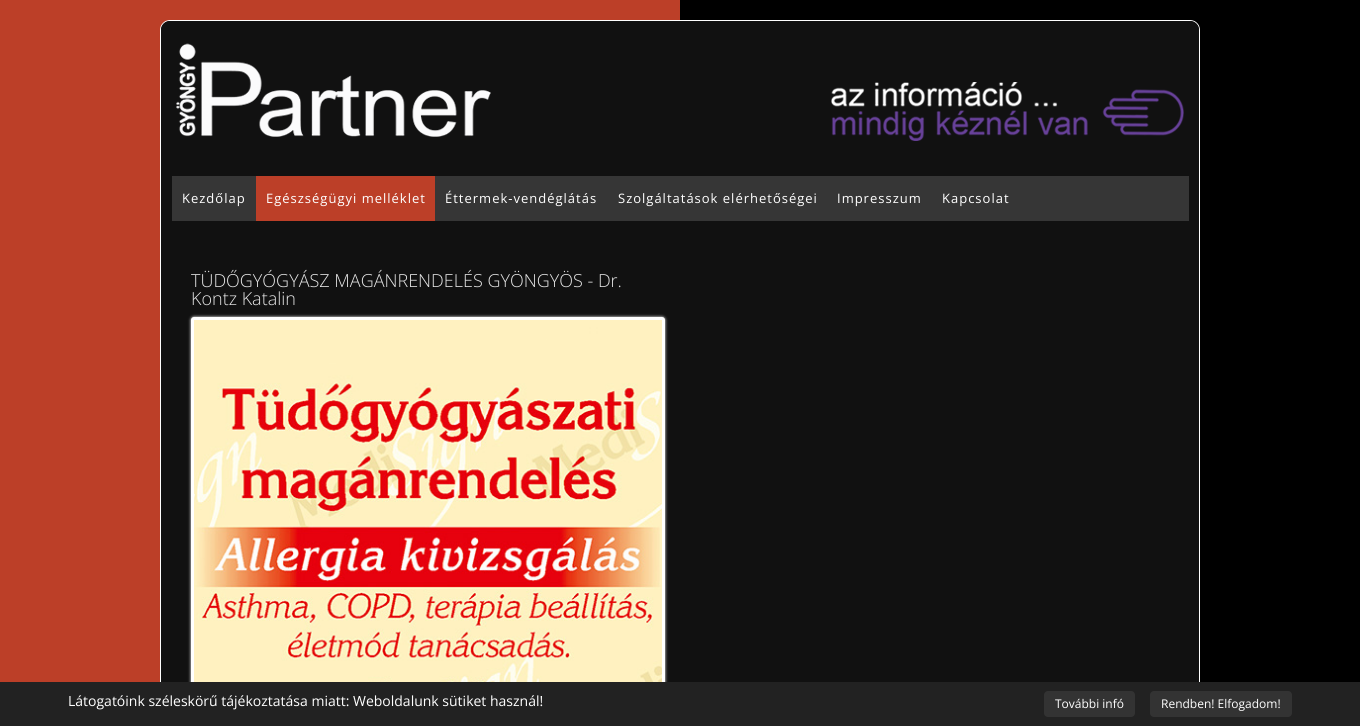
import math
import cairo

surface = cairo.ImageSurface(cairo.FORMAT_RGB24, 1360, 726)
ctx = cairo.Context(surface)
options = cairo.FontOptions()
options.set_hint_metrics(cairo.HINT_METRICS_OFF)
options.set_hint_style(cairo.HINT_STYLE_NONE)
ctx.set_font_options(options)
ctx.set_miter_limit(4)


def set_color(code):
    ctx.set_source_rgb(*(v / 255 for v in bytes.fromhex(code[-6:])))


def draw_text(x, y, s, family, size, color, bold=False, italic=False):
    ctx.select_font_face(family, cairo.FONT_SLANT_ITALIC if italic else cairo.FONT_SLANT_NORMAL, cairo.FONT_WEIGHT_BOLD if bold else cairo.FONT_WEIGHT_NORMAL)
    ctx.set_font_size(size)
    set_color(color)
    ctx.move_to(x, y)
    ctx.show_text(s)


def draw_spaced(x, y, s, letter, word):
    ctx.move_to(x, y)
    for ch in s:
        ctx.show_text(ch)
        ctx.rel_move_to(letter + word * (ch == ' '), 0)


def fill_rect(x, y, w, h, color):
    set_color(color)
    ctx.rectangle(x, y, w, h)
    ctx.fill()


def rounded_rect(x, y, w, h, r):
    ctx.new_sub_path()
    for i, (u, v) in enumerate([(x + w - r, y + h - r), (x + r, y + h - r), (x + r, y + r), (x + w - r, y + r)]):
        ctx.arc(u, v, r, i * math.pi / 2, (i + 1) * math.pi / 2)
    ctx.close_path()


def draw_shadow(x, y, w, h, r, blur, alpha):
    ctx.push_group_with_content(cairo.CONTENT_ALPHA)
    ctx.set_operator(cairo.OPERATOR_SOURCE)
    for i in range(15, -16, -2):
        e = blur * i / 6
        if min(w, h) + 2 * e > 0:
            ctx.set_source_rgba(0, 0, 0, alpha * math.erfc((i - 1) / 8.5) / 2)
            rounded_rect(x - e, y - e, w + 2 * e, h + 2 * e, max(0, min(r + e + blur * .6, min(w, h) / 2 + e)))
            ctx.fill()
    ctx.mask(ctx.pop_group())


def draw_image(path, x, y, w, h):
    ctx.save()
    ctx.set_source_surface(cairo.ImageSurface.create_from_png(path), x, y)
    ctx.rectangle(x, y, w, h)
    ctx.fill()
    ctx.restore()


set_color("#bc3f28")
ctx.paint()
fill_rect(680, 0, 680, 682, "#000000")
set_color("#111111")
rounded_rect(160.5, 20.5, 1039, 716, 9.5)
ctx.fill_preserve()
set_color("#ffffff")
ctx.set_line_width(1)
ctx.stroke()
set_color("#111111")
ctx.new_path()
ctx.move_to(170, 21)
ctx.line_to(1190, 21)
ctx.curve_to(1195, 21, 1199, 25, 1199, 30)
ctx.line_to(1199, 176)
ctx.line_to(161, 176)
ctx.line_to(161, 30)
ctx.curve_to(161, 25, 165, 21, 170, 21)
ctx.close_path()
ctx.fill()
draw_image("assets/img1.png", 176, 43, 315, 94)
draw_image("assets/img2.png", 831, 82, 353, 59)
fill_rect(172, 176, 1017, 45, "#363636")
ctx.select_font_face("Open Sans")
ctx.set_font_size(13)
set_color("#ffffff")
draw_spaced(182, 203, "Kezdőlap", 1, 0)
fill_rect(256, 176, 179, 45, "#bc3f28")
set_color("#ffffff")
draw_spaced(266, 203, "Egészségügyi melléklet", 1, 0)
draw_spaced(445, 203, "Éttermek-vendéglátás", 1, 0)
draw_spaced(618, 203, "Szolgáltatások elérhetőségei", 1, 0)
draw_spaced(837, 203, "Impresszum", 1, 0)
draw_spaced(942, 203, "Kapcsolat", 1, 0)
draw_text(191, 287, "TÜDŐGYÓGYÁSZ MAGÁNRENDELÉS GYÖNGYÖS - Dr.", "Open Sans Light", 18, "#e5e5e5")
draw_text(191, 305, "Kontz Katalin", "Open Sans Light", 18, "#e5e5e5")
set_color("#ffffff")
draw_shadow(191, 317, 474, 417, 3, 1.5, 1)
rounded_rect(192.5, 318.5, 471, 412, 1.5)
set_color("#ffffff")
ctx.set_line_width(3)
ctx.stroke()
draw_image("assets/img3.png", 194, 320, 468, 362)
fill_rect(0, 682, 1360, 44, "#222222")
draw_text(68, 706, "Látogatóink széleskörű tájékoztatása miatt: Weboldalunk sütiket használ!", "Open Sans", 14, "#ffffff")
set_color("#333333")
rounded_rect(1044, 691, 91, 26, 4)
ctx.fill()
draw_text(1055, 708, "További infó", "Open Sans", 12, "#ffffff")
set_color("#333333")
rounded_rect(1150, 691, 142, 26, 4)
ctx.fill()
draw_text(1161, 708, "Rendben! Elfogadom!", "Open Sans", 12, "#ffffff")
surface.write_to_png("output.png")
